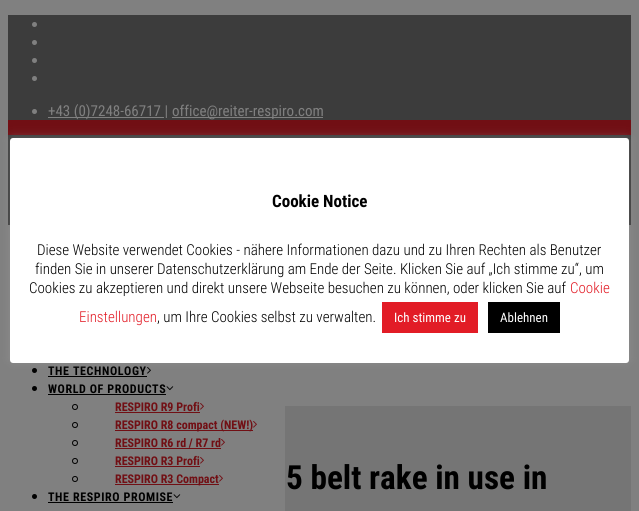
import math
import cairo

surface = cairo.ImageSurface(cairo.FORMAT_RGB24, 639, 511)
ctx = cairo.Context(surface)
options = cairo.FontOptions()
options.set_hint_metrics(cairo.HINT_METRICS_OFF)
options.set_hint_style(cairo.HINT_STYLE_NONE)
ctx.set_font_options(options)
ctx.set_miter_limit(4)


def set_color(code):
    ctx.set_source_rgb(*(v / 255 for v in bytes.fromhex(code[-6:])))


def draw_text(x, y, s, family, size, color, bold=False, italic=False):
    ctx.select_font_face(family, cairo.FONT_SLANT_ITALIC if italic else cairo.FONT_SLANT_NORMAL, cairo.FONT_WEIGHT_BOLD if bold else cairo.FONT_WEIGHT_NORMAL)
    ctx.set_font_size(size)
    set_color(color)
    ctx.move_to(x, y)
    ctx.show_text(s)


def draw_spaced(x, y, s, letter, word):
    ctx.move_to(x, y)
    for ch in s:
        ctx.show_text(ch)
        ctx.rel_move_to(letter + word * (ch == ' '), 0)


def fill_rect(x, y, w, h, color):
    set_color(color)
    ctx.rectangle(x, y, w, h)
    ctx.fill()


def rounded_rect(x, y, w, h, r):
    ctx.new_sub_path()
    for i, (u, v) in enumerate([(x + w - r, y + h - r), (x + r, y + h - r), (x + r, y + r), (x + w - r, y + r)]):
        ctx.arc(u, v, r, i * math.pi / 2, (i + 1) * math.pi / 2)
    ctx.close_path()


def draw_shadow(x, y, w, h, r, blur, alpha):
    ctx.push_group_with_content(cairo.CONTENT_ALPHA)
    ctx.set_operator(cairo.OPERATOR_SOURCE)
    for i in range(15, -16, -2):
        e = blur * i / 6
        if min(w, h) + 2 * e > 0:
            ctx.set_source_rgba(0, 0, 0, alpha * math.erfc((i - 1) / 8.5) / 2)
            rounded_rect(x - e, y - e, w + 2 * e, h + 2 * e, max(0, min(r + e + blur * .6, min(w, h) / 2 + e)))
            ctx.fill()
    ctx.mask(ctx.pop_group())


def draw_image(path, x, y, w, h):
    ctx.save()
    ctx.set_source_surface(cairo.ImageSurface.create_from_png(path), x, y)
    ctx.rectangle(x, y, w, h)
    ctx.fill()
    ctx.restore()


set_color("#808080")
ctx.paint()
fill_rect(8, 120, 623, 15, "#710f14")
fill_rect(8, 15, 623, 105, "#3c3c3c")
set_color("#808080")
ctx.arc(34.5, 24.5, 2.5, 0, 2 * math.pi)
ctx.fill()
ctx.arc(34.5, 42.5, 2.5, 0, 2 * math.pi)
ctx.fill()
ctx.arc(34.5, 60.5, 2.5, 0, 2 * math.pi)
ctx.fill()
ctx.arc(34.5, 78.5, 2.5, 0, 2 * math.pi)
ctx.fill()
ctx.arc(34.5, 111.5, 2.5, 0, 2 * math.pi)
ctx.fill()
fill_rect(48, 117, 116, 1, "#808080")
draw_text(48, 116, "+43 (0)7248-66717 |", "Roboto Condensed", 15, "#808080")
fill_rect(172, 117, 151, 1, "#808080")
draw_text(172, 116, "office@reiter-respiro.com", "Roboto Condensed", 15, "#808080")
fill_rect(8, 135, 623, 90, "#3c3c3c")
set_color("#000000")
ctx.new_path()
ctx.arc(34.5, 370.5, 2.5, 0, 2 * math.pi)
ctx.fill()
ctx.select_font_face("Roboto Condensed", cairo.FONT_SLANT_NORMAL, cairo.FONT_WEIGHT_BOLD)
ctx.set_font_size(12)
draw_spaced(48, 375, "THE TECHNOLOGY", 0.6, 0)
fill_rect(48, 376, 99, 1, "#000000")
draw_image("assets/img1.png", 147, 367, 4, 7)
ctx.arc(34.5, 388.5, 2.5, 0, 2 * math.pi)
ctx.fill()
draw_spaced(48, 393, "WORLD OF PRODUCTS", 0.6, 0)
fill_rect(48, 394, 118, 1, "#000000")
draw_image("assets/img2.png", 166, 386, 8, 5)
ctx.arc(75, 407, 2.5, 0, 2 * math.pi)
ctx.set_line_width(1)
ctx.stroke()
draw_text(115, 411, "RESPIRO R9 Profi", "Roboto Condensed", 12, "#710f14", bold=True)
fill_rect(115, 412, 85, 1, "#710f14")
draw_image("assets/img3.png", 200, 403, 4, 7)
ctx.arc(75, 425, 2.5, 0, 2 * math.pi)
set_color("#000000")
ctx.stroke()
fill_rect(115, 430, 138, 1, "#710f14")
draw_text(115, 429, "RESPIRO R8 compact (NEW!)", "Roboto Condensed", 12, "#710f14", bold=True)
draw_image("assets/img3.png", 253, 421, 4, 7)
ctx.arc(75, 443, 2.5, 0, 2 * math.pi)
set_color("#000000")
ctx.stroke()
draw_text(115, 447, "RESPIRO R6 rd / R7 rd", "Roboto Condensed", 12, "#710f14", bold=True)
fill_rect(115, 448, 106, 1, "#710f14")
draw_image("assets/img3.png", 221, 439, 4, 7)
ctx.arc(75, 461, 2.5, 0, 2 * math.pi)
set_color("#000000")
ctx.stroke()
draw_text(115, 465, "RESPIRO R3 Profi", "Roboto Condensed", 12, "#710f14", bold=True)
fill_rect(115, 466, 85, 1, "#710f14")
draw_image("assets/img3.png", 200, 457, 4, 7)
ctx.arc(75, 479, 2.5, 0, 2 * math.pi)
set_color("#000000")
ctx.stroke()
fill_rect(115, 484, 104, 1, "#710f14")
draw_text(115, 483, "RESPIRO R3 Compact", "Roboto Condensed", 12, "#710f14", bold=True)
draw_image("assets/img3.png", 219, 475, 4, 7)
set_color("#000000")
ctx.arc(34.5, 496.5, 2.5, 0, 2 * math.pi)
ctx.fill()
draw_spaced(48, 501, "THE RESPIRO PROMISE", 0.6, 0)
fill_rect(48, 502, 125, 1, "#000000")
draw_image("assets/img2.png", 173, 494, 8, 5)
fill_rect(285, 406, 346, 105, "#757575")
draw_text(286, 489, "5 belt rake in use in", "Roboto Condensed", 33.25, "#000000", bold=True)
set_color("#acabab")
draw_shadow(10, 137, 619, 225, 3, 5, 0.3)
set_color("#ffffff")
rounded_rect(10, 138, 619, 225, 3)
ctx.fill()
draw_text(272, 207, "Cookie Notice", "Roboto Condensed", 17, "#000000", bold=True)
draw_text(37, 255, "Diese Website verwendet Cookies - nähere Informationen dazu und zu Ihren Rechten als Benutzer", "Roboto Condensed Light", 15, "#000000")
draw_text(35, 274, "finden Sie in unserer Datenschutzerklärung am Ende der Seite. Klicken Sie auf „Ich stimme zu“, um", "Roboto Condensed Light", 15, "#000000")
draw_text(29, 293, "Cookies zu akzeptieren und direkt unsere Webseite besuchen zu können, oder klicken Sie auf", "Roboto Condensed Light", 15, "#000000")
draw_text(570, 293, "Cookie", "Roboto Condensed Light", 15, "#e21c26")
draw_text(79, 322, "Einstellungen", "Roboto Condensed Light", 15, "#e21c26")
draw_text(157, 322, ", um Ihre Cookies selbst zu verwalten.", "Roboto Condensed Light", 15, "#000000")
fill_rect(382, 302, 96, 31, "#e21c26")
draw_text(394, 322, "Ich stimme zu", "Roboto Condensed", 13, "#ffffff")
fill_rect(488, 302, 72, 31, "#000000")
draw_text(500, 322, "Ablehnen", "Roboto Condensed", 13, "#ffffff")
surface.write_to_png("output.png")
